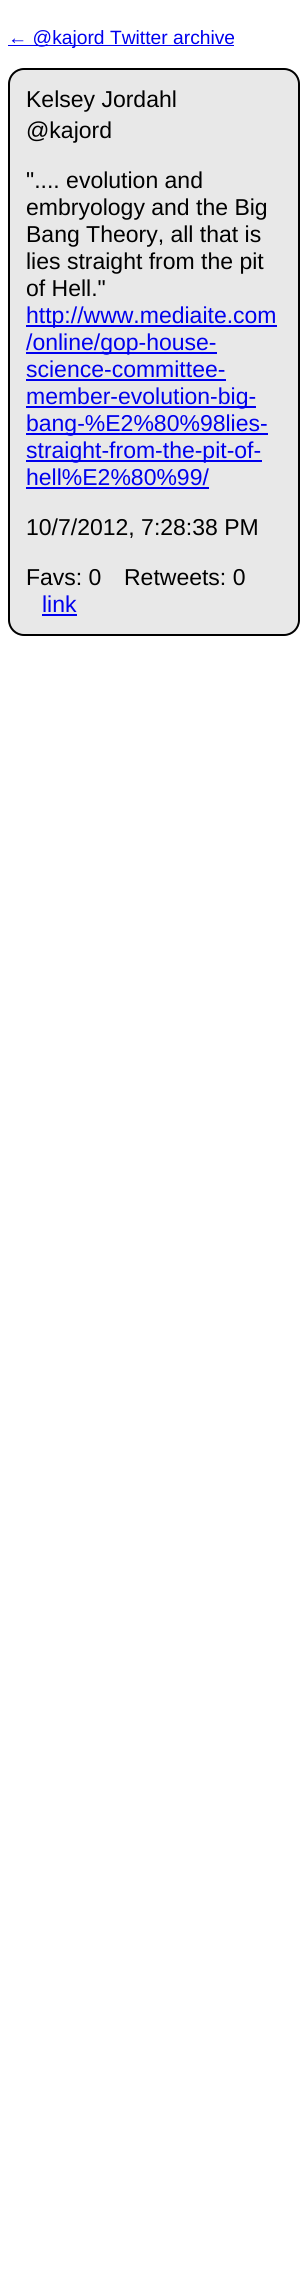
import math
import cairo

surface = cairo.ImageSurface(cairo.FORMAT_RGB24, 308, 2282)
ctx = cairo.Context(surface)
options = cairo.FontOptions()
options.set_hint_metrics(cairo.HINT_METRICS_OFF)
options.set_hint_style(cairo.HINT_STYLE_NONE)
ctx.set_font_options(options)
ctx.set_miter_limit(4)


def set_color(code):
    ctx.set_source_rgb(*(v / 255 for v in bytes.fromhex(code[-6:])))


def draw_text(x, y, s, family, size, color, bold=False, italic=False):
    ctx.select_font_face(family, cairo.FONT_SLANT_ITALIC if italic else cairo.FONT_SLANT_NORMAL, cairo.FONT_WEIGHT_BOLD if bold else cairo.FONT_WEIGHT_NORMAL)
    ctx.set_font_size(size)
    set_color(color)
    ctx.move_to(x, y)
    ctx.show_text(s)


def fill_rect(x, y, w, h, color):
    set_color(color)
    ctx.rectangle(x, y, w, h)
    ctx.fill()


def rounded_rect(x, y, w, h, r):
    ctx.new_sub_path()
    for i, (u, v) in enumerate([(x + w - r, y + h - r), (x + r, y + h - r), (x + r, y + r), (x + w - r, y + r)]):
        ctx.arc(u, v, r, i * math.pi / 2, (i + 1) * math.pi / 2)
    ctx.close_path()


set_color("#ffffff")
ctx.paint()
fill_rect(8, 45, 226, 1, "#0000ee")
draw_text(8, 44, "← @kajord Twitter archive", "Liberation Sans", 19.25, "#0000ee")
set_color("#e8e8e8")
rounded_rect(9, 69, 290, 566, 15)
ctx.fill_preserve()
set_color("#000000")
ctx.stroke()
draw_text(26, 107, "Kelsey Jordahl", "Liberation Sans", 23, "#000000")
draw_text(26, 138, "@kajord", "Liberation Sans", 23, "#000000")
draw_text(26, 188, "\".... evolution and", "Liberation Sans", 23, "#000000")
draw_text(26, 215, "embryology and the Big", "Liberation Sans", 23, "#000000")
draw_text(26, 242, "Bang Theory, all that is", "Liberation Sans", 23, "#000000")
draw_text(26, 269, "lies straight from the pit", "Liberation Sans", 23, "#000000")
draw_text(26, 296, "of Hell.\"", "Liberation Sans", 23, "#000000")
fill_rect(26, 325, 251, 2, "#0000ee")
draw_text(26, 323, "http://www.mediaite.com", "Liberation Sans", 23, "#0000ee")
fill_rect(26, 352, 191, 2, "#0000ee")
draw_text(26, 350, "/online/gop-house-", "Liberation Sans", 23, "#0000ee")
draw_text(26, 377, "science-committee-", "Liberation Sans", 23, "#0000ee")
fill_rect(26, 379, 200, 2, "#0000ee")
fill_rect(26, 406, 230, 2, "#0000ee")
draw_text(26, 404, "member-evolution-big-", "Liberation Sans", 23, "#0000ee")
fill_rect(26, 433, 242, 2, "#0000ee")
draw_text(26, 431, "bang-%E2%80%98lies-", "Liberation Sans", 23, "#0000ee")
fill_rect(26, 460, 236, 2, "#0000ee")
draw_text(26, 458, "straight-from-the-pit-of-", "Liberation Sans", 23, "#0000ee")
draw_text(26, 485, "hell%E2%80%99/", "Liberation Sans", 23, "#0000ee")
fill_rect(26, 487, 183, 2, "#0000ee")
draw_text(26, 535, "10/7/2012, 7:28:38 PM", "Liberation Sans", 23, "#000000")
draw_text(26, 585, "Favs: 0", "Liberation Sans", 23, "#000000")
draw_text(124, 585, "Retweets: 0", "Liberation Sans", 23, "#000000")
draw_text(42, 612, "link", "Liberation Sans", 23, "#0000ee")
fill_rect(42, 614, 35, 2, "#0000ee")
surface.write_to_png("output.png")
